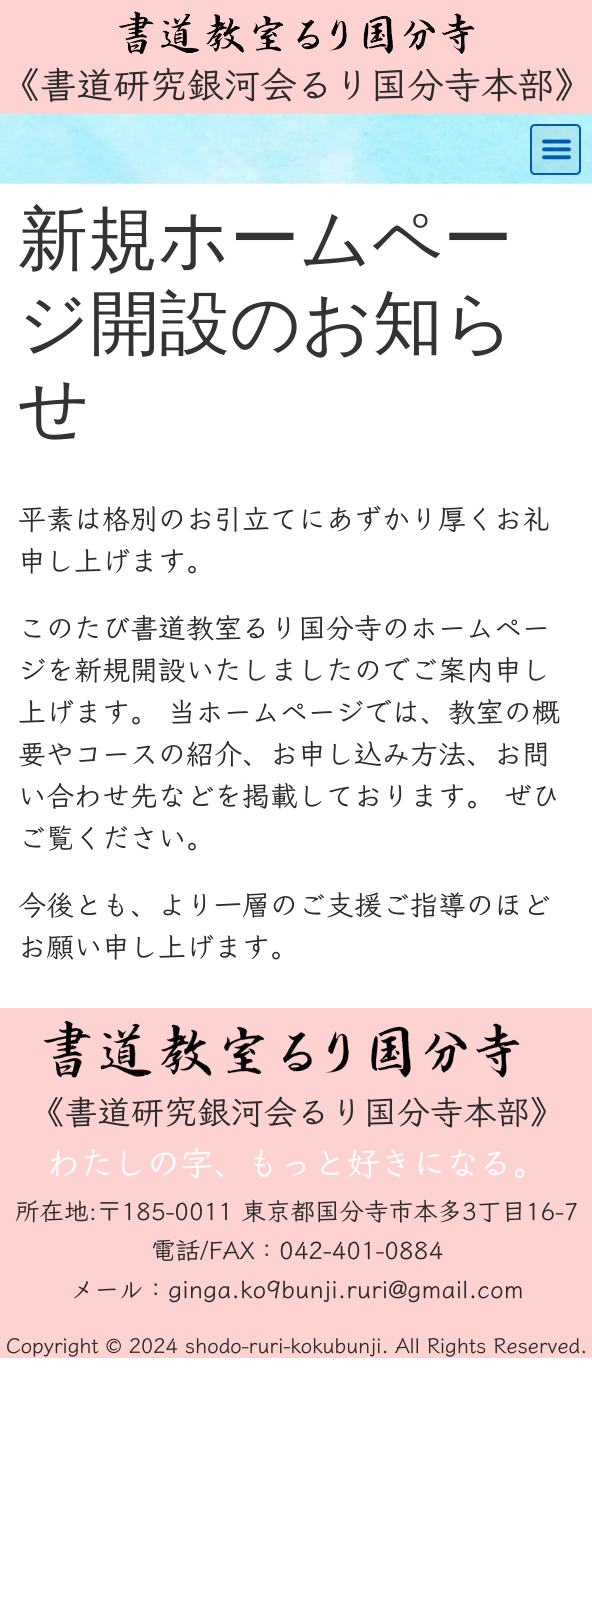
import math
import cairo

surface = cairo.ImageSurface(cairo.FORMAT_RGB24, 592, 1606)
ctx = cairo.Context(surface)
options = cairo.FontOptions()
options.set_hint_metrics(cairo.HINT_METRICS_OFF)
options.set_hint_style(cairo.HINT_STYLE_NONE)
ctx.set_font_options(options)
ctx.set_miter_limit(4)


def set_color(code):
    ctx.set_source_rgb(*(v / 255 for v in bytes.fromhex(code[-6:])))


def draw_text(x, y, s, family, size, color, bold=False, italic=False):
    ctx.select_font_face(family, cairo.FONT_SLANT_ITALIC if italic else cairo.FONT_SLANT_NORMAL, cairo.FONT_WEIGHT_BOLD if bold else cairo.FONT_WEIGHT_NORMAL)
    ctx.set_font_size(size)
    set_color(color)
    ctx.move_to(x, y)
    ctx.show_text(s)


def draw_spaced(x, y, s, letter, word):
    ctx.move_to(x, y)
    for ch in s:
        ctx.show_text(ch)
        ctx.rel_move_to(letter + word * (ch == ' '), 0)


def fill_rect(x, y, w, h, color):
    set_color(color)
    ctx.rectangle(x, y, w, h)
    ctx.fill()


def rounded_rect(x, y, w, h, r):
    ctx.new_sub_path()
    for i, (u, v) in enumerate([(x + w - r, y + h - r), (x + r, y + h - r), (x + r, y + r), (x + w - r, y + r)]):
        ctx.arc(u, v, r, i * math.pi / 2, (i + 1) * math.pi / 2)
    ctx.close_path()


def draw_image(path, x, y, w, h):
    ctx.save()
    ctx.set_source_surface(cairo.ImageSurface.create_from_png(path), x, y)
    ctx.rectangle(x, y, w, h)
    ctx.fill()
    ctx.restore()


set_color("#ffffff")
ctx.paint()
fill_rect(0, 0, 592, 114, "#ffd2d2")
draw_image("assets/img1.png", 119, 11, 356, 43)
draw_text(3, 98, "《書道研究銀河会るり国分寺本部》", "Klee One SemiBold", 36.75, "#2b2b2b")
draw_image("assets/img2.png", 0, 113, 592, 71)
ctx.set_source_rgba(0, 0, 0, 0.05)
ctx.rectangle(530, 124, 51, 51)
ctx.fill()
rounded_rect(531, 125, 49, 49, 4)
set_color("#005caf")
ctx.stroke()
draw_image("assets/img3.png", 542, 139, 29, 21)
draw_text(18, 263, "新規ホームペー", "WenQuanYi Zen Hei Medium", 70, "#333333")
draw_text(18, 347, "ジ開設のお知ら", "WenQuanYi Zen Hei Medium", 70, "#333333")
draw_text(18, 431, "せ", "WenQuanYi Zen Hei Medium", 70, "#333333")
draw_text(18, 529, "平素は格別のお引立てにあずかり厚くお礼", "Klee One SemiBold", 28, "#2b2b2b")
draw_text(18, 571, "申し上げます。", "Klee One SemiBold", 28, "#2b2b2b")
draw_text(18, 638, "このたび書道教室るり国分寺のホームペー", "Klee One SemiBold", 28, "#2b2b2b")
draw_text(18, 680, "ジを新規開設いたしましたのでご案内申し", "Klee One SemiBold", 28, "#2b2b2b")
draw_text(18, 722, "上げます。 当ホームページでは、教室の概", "Klee One SemiBold", 28, "#2b2b2b")
draw_text(18, 764, "要やコースの紹介、お申し込み方法、お問", "Klee One SemiBold", 28, "#2b2b2b")
draw_text(18, 806, "い合わせ先などを掲載しております。 ぜひ", "Klee One SemiBold", 28, "#2b2b2b")
draw_text(18, 848, "ご覧ください。", "Klee One SemiBold", 28, "#2b2b2b")
draw_text(18, 915, "今後とも、より一層のご支援ご指導のほど", "Klee One SemiBold", 28, "#2b2b2b")
draw_text(18, 957, "お願い申し上げます。", "Klee One SemiBold", 28, "#2b2b2b")
fill_rect(0, 1008, 592, 350, "#ffd2d2")
draw_image("assets/img4.png", 43, 1020, 477, 58)
draw_text(31, 1124, "《書道研究銀河会るり国分寺本部》", "Klee One SemiBold", 33.25, "#2b2b2b")
draw_text(47, 1175, "わたしの字、もっと好きになる。", "Klee One SemiBold", 33.25, "#ffffff")
draw_text(15, 1220, "所在地:〒185-0011 東京都国分寺市本多3丁目16−7", "Klee One SemiBold", 24.5, "#2b2b2b")
draw_text(151, 1259, "電話/FAX：042-401-0884", "Klee One SemiBold", 24.5, "#2b2b2b")
draw_text(70, 1298, "メール：ginga.ko9bunji.ruri@gmail.com", "Klee One SemiBold", 24.5, "#2b2b2b")
ctx.set_font_size(21)
draw_spaced(6, 1353, "Copyright © 2024 shodo-ruri-kokubunji. All Rights Reserved.", -0.35, 0)
surface.write_to_png("output.png")
